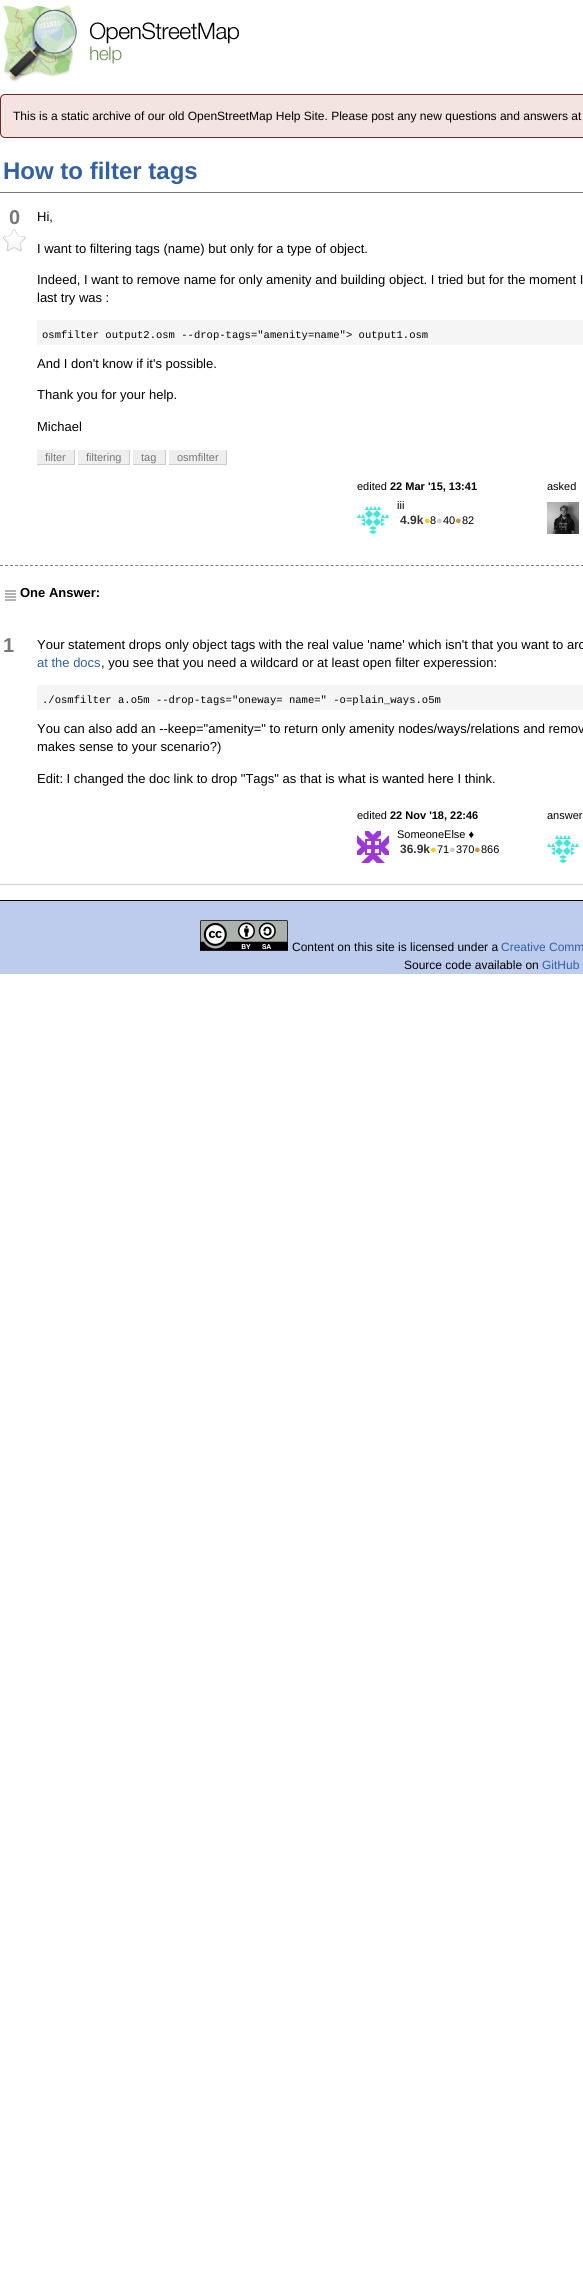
import math
import cairo

surface = cairo.ImageSurface(cairo.FORMAT_RGB24, 583, 2269)
ctx = cairo.Context(surface)
options = cairo.FontOptions()
options.set_hint_metrics(cairo.HINT_METRICS_OFF)
options.set_hint_style(cairo.HINT_STYLE_NONE)
ctx.set_font_options(options)
ctx.set_miter_limit(4)


def set_color(code):
    ctx.set_source_rgb(*(v / 255 for v in bytes.fromhex(code[-6:])))


def draw_text(x, y, s, family, size, color, bold=False, italic=False):
    ctx.select_font_face(family, cairo.FONT_SLANT_ITALIC if italic else cairo.FONT_SLANT_NORMAL, cairo.FONT_WEIGHT_BOLD if bold else cairo.FONT_WEIGHT_NORMAL)
    ctx.set_font_size(size)
    set_color(color)
    ctx.move_to(x, y)
    ctx.show_text(s)


def fill_rect(x, y, w, h, color):
    set_color(color)
    ctx.rectangle(x, y, w, h)
    ctx.fill()


def rounded_rect(x, y, w, h, r):
    ctx.new_sub_path()
    for i, (u, v) in enumerate([(x + w - r, y + h - r), (x + r, y + h - r), (x + r, y + r), (x + w - r, y + r)]):
        ctx.arc(u, v, r, i * math.pi / 2, (i + 1) * math.pi / 2)
    ctx.close_path()


def draw_image(path, x, y, w, h):
    ctx.save()
    ctx.set_source_surface(cairo.ImageSurface.create_from_png(path), x, y)
    ctx.rectangle(x, y, w, h)
    ctx.fill()
    ctx.restore()


set_color("#ffffff")
ctx.paint()
draw_image("assets/img1.png", 3, 5, 236, 77)
set_color("#f3e3e1")
rounded_rect(0.5, 94.5, 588, 43, 4.5)
ctx.fill_preserve()
set_color("#6b2b28")
ctx.set_line_width(1)
ctx.stroke()
draw_text(13, 120, "This is a static archive of our old OpenStreetMap Help Site. Please post any new questions and answers at", "Liberation Sans", 12, "#000000")
fill_rect(0, 192, 583, 1, "#777777")
draw_text(3, 179, "How to filter tags", "Liberation Sans", 24, "#3060a8", bold=True)
draw_text(9, 224, "0", "Liberation Sans", 20, "#777777", bold=True)
draw_image("assets/img2.png", 3, 229, 23, 22)
draw_text(37, 221, "Hi,", "Liberation Sans", 13, "#000000")
draw_text(37, 253, "I want to filtering tags (name) but only for a type of object.", "Liberation Sans", 13, "#000000")
draw_text(37, 284, "Indeed, I want to remove name for only amenity and building object. I tried but for the moment I", "Liberation Sans", 13, "#000000")
draw_text(37, 302, "last try was :", "Liberation Sans", 13, "#000000")
fill_rect(37, 320, 546, 25, "#f5f5f5")
draw_text(42, 338, "osmfilter output2.osm --drop-tags=\"amenity=name\"> output1.osm", "Liberation Mono", 10.55, "#000000")
draw_text(37, 368, "And I don't know if it's possible.", "Liberation Sans", 13, "#000000")
draw_text(37, 399, "Thank you for your help.", "Liberation Sans", 13, "#000000")
draw_text(37, 431, "Michael", "Liberation Sans", 13, "#000000")
fill_rect(37, 450, 37, 14, "#eeeeee")
draw_text(45, 461, "filter", "Liberation Sans", 11, "#777777")
fill_rect(74, 450, 1, 15, "#cccccc")
fill_rect(37, 464, 38, 1, "#cccccc")
fill_rect(78, 450, 51, 14, "#eeeeee")
draw_text(86, 461, "filtering", "Liberation Sans", 11, "#777777")
fill_rect(129, 450, 1, 15, "#cccccc")
fill_rect(78, 464, 52, 1, "#cccccc")
fill_rect(133, 450, 32, 14, "#eeeeee")
draw_text(141, 461, "tag", "Liberation Sans", 11, "#777777")
fill_rect(165, 450, 1, 15, "#cccccc")
fill_rect(133, 464, 33, 1, "#cccccc")
fill_rect(169, 450, 57, 14, "#eeeeee")
draw_text(177, 461, "osmfilter", "Liberation Sans", 11, "#777777")
fill_rect(226, 450, 1, 15, "#cccccc")
fill_rect(169, 464, 58, 1, "#cccccc")
draw_text(357, 490, "edited", "Liberation Sans", 11, "#000000")
draw_text(390, 490, "22 Mar '15, 13:41", "Liberation Sans", 11, "#000000", bold=True)
draw_image("assets/img3.png", 357, 506, 32, 28)
draw_text(397, 509, "iii", "Liberation Sans", 11, "#000000")
draw_text(400, 524, "4.9k", "Liberation Sans", 12, "#333333", bold=True)
draw_text(424, 524, "●", "Liberation Sans", 11, "#ffcc00")
draw_text(430, 524, "8", "Liberation Sans", 11, "#000000")
draw_text(436, 524, "●", "Liberation Sans", 11, "#cccccc")
draw_text(443, 524, "40", "Liberation Sans", 11, "#000000")
draw_text(455, 524, "●", "Liberation Sans", 11, "#cc9933")
draw_text(462, 524, "82", "Liberation Sans", 11, "#000000")
draw_text(547, 490, "asked", "Liberation Sans", 11, "#000000")
draw_image("assets/img4.png", 547, 502, 32, 32)
ctx.new_path()
ctx.move_to(0, 565.5)
ctx.line_to(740, 565.5)
set_color("#808080")
ctx.set_dash([3, 2.01])
ctx.stroke()
draw_image("assets/img5.png", 5, 590, 11, 11)
draw_text(20, 597, "One Answer:", "Liberation Sans", 13, "#000000", bold=True)
fill_rect(0, 884, 583, 1, "#ccccce")
draw_text(3, 652, "1", "Liberation Sans", 20, "#777777", bold=True)
draw_text(37, 649, "Your statement drops only object tags with the real value 'name' which isn't that you want to arc", "Liberation Sans", 13, "#000000")
draw_text(37, 667, "at the docs", "Liberation Sans", 13, "#3060a8")
draw_text(101, 667, ", you see that you need a wildcard or at least open filter experession:", "Liberation Sans", 13, "#000000")
fill_rect(37, 685, 546, 25, "#f5f5f5")
draw_text(42, 703, "./osmfilter a.o5m --drop-tags=\"oneway= name=\" -o=plain_ways.o5m", "Liberation Mono", 10.55, "#000000")
draw_text(37, 733, "You can also add an --keep=\"amenity=\" to return only amenity nodes/ways/relations and remov", "Liberation Sans", 13, "#000000")
draw_text(37, 751, "makes sense to your scenario?)", "Liberation Sans", 13, "#000000")
draw_text(37, 783, "Edit: I changed the doc link to drop \"Tags\" as that is what is wanted here I think.", "Liberation Sans", 13, "#000000")
draw_text(357, 819, "edited", "Liberation Sans", 11, "#000000")
draw_text(390, 819, "22 Nov '18, 22:46", "Liberation Sans", 11, "#000000", bold=True)
draw_image("assets/img6.png", 357, 831, 32, 32)
draw_text(397, 838, "SomeoneElse ♦", "Liberation Sans", 11, "#000000")
draw_text(400, 853, "36.9k", "Liberation Sans", 12, "#333333", bold=True)
draw_text(430, 853, "●", "Liberation Sans", 11, "#ffcc00")
draw_text(437, 853, "71", "Liberation Sans", 11, "#000000")
draw_text(449, 853, "●", "Liberation Sans", 11, "#cccccc")
draw_text(456, 853, "370", "Liberation Sans", 11, "#000000")
draw_text(474, 853, "●", "Liberation Sans", 11, "#cc9933")
draw_text(481, 853, "866", "Liberation Sans", 11, "#000000")
draw_text(547, 819, "answer", "Liberation Sans", 11, "#000000")
draw_image("assets/img3.png", 547, 835, 32, 28)
fill_rect(0, 901, 583, 73, "#bdcced")
fill_rect(0, 900, 583, 1, "#000000")
draw_image("assets/img7.png", 200, 920, 88, 31)
draw_text(292, 951, "Content on this site is licensed under a", "Liberation Sans", 12, "#000000")
draw_text(501, 951, "Creative Comm", "Liberation Sans", 12, "#3060a8")
draw_text(404, 969, "Source code available on", "Liberation Sans", 12, "#000000")
draw_text(542, 969, "GitHub", "Liberation Sans", 12, "#3060a8")
surface.write_to_png("output.png")
